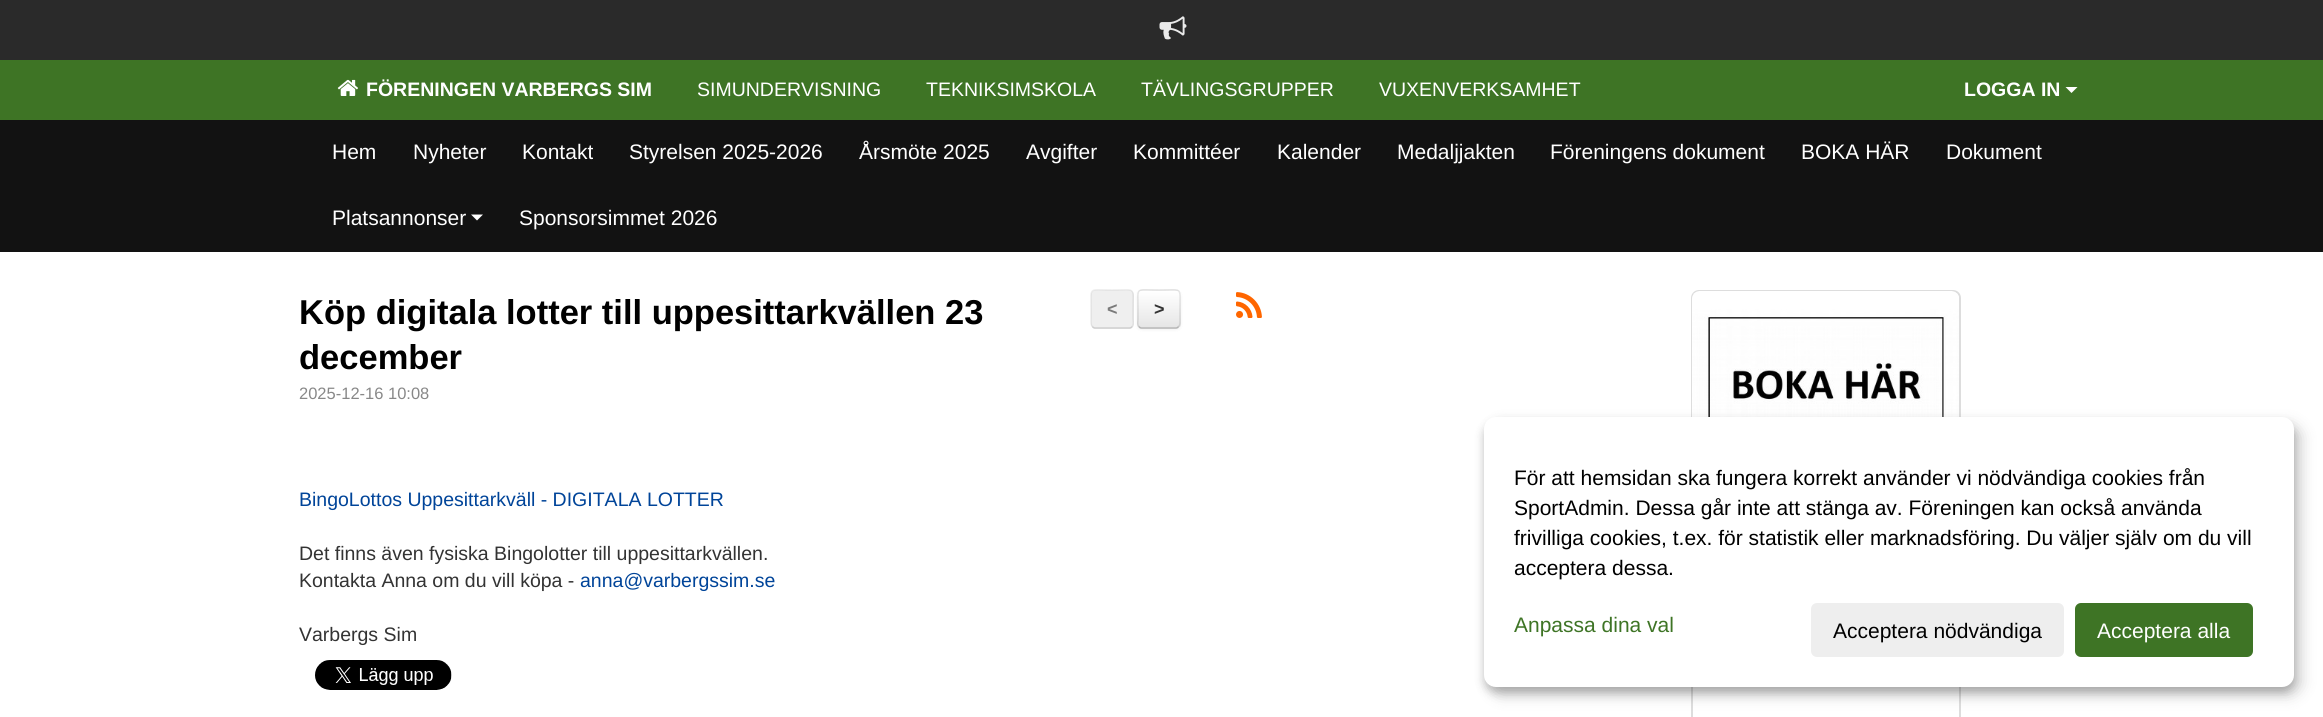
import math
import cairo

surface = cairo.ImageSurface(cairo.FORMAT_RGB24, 2323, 717)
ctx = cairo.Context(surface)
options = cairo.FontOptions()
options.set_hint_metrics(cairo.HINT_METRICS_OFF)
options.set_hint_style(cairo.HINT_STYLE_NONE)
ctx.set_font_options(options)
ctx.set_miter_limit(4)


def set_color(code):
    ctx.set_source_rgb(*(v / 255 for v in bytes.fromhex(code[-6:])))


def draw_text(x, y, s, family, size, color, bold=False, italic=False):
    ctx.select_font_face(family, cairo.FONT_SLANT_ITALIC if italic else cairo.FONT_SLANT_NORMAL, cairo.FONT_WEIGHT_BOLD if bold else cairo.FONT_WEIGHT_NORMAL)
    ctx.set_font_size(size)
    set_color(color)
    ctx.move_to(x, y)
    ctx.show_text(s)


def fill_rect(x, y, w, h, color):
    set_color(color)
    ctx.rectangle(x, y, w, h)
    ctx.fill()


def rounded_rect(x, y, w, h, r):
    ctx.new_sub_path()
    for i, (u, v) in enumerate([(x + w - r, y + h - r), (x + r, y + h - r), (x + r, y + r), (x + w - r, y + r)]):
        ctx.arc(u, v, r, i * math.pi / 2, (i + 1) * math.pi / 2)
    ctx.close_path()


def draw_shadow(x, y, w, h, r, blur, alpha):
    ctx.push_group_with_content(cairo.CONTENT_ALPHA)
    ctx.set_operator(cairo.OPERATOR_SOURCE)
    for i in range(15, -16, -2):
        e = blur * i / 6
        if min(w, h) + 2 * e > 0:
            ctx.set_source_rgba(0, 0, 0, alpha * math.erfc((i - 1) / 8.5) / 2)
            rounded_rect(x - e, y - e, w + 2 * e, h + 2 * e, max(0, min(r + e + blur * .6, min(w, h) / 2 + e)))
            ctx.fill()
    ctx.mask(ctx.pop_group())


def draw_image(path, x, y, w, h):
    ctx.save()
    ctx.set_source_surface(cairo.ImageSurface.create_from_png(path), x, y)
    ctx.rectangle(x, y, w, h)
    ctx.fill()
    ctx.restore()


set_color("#ffffff")
ctx.paint()
fill_rect(0, 0, 2323, 60, "#2a2a2a")
draw_image("assets/img1.png", 1159, 16, 28, 24)
fill_rect(0, 60, 2323, 60, "#3e7425")
draw_image("assets/img2.png", 337, 79, 21, 17)
draw_text(366, 96, "FÖRENINGEN VARBERGS SIM", "Liberation Sans", 19.5, "#ffffff", bold=True)
draw_text(697, 96, "SIMUNDERVISNING", "Liberation Sans", 19.5, "#ffffff")
draw_text(926, 96, "TEKNIKSIMSKOLA", "Liberation Sans", 19.5, "#ffffff")
draw_text(1141, 96, "TÄVLINGSGRUPPER", "Liberation Sans", 19.5, "#ffffff")
draw_text(1379, 96, "VUXENVERKSAMHET", "Liberation Sans", 19.5, "#ffffff")
draw_text(1964, 96, "LOGGA IN", "Liberation Sans", 19.5, "#ffffff", bold=True)
ctx.new_path()
ctx.move_to(2065.5, 87)
ctx.line_to(2077.5, 87)
ctx.line_to(2071.5, 93)
ctx.close_path()
ctx.fill()
fill_rect(0, 120, 2323, 132, "#121212")
draw_text(332, 159, "Hem", "Liberation Sans", 21, "#ffffff")
draw_text(413, 159, "Nyheter", "Liberation Sans", 21, "#ffffff")
draw_text(522, 159, "Kontakt", "Liberation Sans", 21, "#ffffff")
draw_text(629, 159, "Styrelsen 2025-2026", "Liberation Sans", 21, "#ffffff")
draw_text(859, 159, "Årsmöte 2025", "Liberation Sans", 21, "#ffffff")
draw_text(1026, 159, "Avgifter", "Liberation Sans", 21, "#ffffff")
draw_text(1133, 159, "Kommittéer", "Liberation Sans", 21, "#ffffff")
draw_text(1277, 159, "Kalender", "Liberation Sans", 21, "#ffffff")
draw_text(1397, 159, "Medaljjakten", "Liberation Sans", 21, "#ffffff")
draw_text(1550, 159, "Föreningens dokument", "Liberation Sans", 21, "#ffffff")
draw_text(1801, 159, "BOKA HÄR", "Liberation Sans", 21, "#ffffff")
draw_text(1946, 159, "Dokument", "Liberation Sans", 21, "#ffffff")
draw_text(332, 225, "Platsannonser", "Liberation Sans", 21, "#ffffff")
ctx.new_path()
ctx.move_to(471, 214.5)
ctx.line_to(483, 214.5)
ctx.line_to(477, 220.5)
ctx.close_path()
ctx.fill()
draw_text(519, 225, "Sponsorsimmet 2026", "Liberation Sans", 21, "#ffffff")
draw_text(299, 324, "Köp digitala lotter till uppesittarkvällen 23", "Liberation Sans", 34.5, "#000000", bold=True)
draw_text(299, 369, "december", "Liberation Sans", 34.5, "#000000", bold=True)
draw_text(299, 399, "2025-12-16 10:08", "Liberation Sans", 16.5, "#888888")
draw_text(299, 506, "BingoLottos Uppesittarkväll - DIGITALA LOTTER", "Liberation Sans", 19.5, "#004499")
draw_text(299, 560, "Det finns även fysiska Bingolotter till uppesittarkvällen.", "Liberation Sans", 19.5, "#333333")
draw_text(299, 587, "Kontakta Anna om du vill köpa -", "Liberation Sans", 19.5, "#333333")
draw_text(580, 587, "anna@varbergssim.se", "Liberation Sans", 19.5, "#004499")
draw_text(299, 641, "Varbergs Sim", "Liberation Sans", 19.5, "#333333")
draw_image("assets/img3.png", 315, 660, 137, 30)
set_color("#000000")
draw_shadow(1137, 291, 44, 39, 5, 1.5, 0.05)
set_color("#efefef")
rounded_rect(1091, 290, 43, 39, 5)
ctx.fill()
ctx.new_path()
ctx.move_to(1132, 326.5)
ctx.curve_to(1131.5, 327.5, 1130.5, 328, 1129.5, 328)
ctx.line_to(1095, 328)
ctx.curve_to(1094, 328, 1093, 327.5, 1092.5, 326.5)
set_color("#cecece")
ctx.set_line_width(1.5)
ctx.stroke()
ctx.new_path()
ctx.move_to(1092.5, 326.5)
ctx.curve_to(1090.5, 325, 1091, 321, 1091, 319)
ctx.line_to(1091, 309)
ctx.curve_to(1091, 286, 1088, 290, 1112, 290)
ctx.curve_to(1136.5, 290, 1133, 286, 1133, 309)
ctx.line_to(1133, 319)
ctx.curve_to(1133, 321, 1134, 325, 1132, 326.5)
ctx.set_source_rgba(0.349, 0.349, 0.349, 0.1)
ctx.stroke()
draw_text(1107, 315, "<", "Liberation Sans", 18, "#7a7a7a", bold=True)
set_color("#f5f5f5")
rounded_rect(1137, 290, 44, 39, 5)
ctx.fill()
ctx.save()
rounded_rect(1137, 290, 44, 39, 5)
ctx.clip()
gradient = cairo.LinearGradient(1159, 291, 1159, 327)
gradient.add_color_stop_rgba(0, 1, 1, 1, 1)
gradient.add_color_stop_rgba(1, 0.902, 0.902, 0.902, 1)
ctx.set_source(gradient)
ctx.rectangle(1137, 291, 44, 36)
ctx.fill()
ctx.restore()
ctx.new_path()
ctx.move_to(1178.5, 326.5)
ctx.curve_to(1178, 327.5, 1177, 328, 1176, 328)
ctx.line_to(1141.5, 328)
ctx.curve_to(1140.5, 328, 1139.5, 327.5, 1139, 326.5)
set_color("#b3b3b3")
ctx.stroke()
ctx.new_path()
ctx.move_to(1139, 326.5)
ctx.curve_to(1137, 325, 1138, 321, 1138, 319)
ctx.line_to(1138, 309)
ctx.curve_to(1138, 286, 1134.5, 290, 1159, 290)
ctx.curve_to(1183, 290, 1180, 286, 1180, 309)
ctx.line_to(1180, 319)
ctx.curve_to(1180, 321, 1180.5, 325, 1178.5, 326.5)
ctx.set_source_rgba(0, 0, 0, 0.1)
ctx.stroke()
draw_text(1154, 315, ">", "Liberation Sans", 18, "#333333", bold=True)
draw_image("assets/img4.png", 1236, 292, 26, 26)
rounded_rect(1692, 291, 268, 187, 7)
set_color("#dddddd")
ctx.set_line_width(2)
ctx.stroke()
draw_image("assets/img5.png", 1692, 291, 267, 126)
ctx.rectangle(1692, 586, 268, 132)
ctx.stroke()
set_color("#000000")
draw_shadow(1491, 425, 810, 270, 12, 7.5, 0.19)
draw_shadow(1484, 423, 810, 270, 12, 4.5, 0.2)
set_color("#ffffff")
rounded_rect(1484, 417, 810, 270, 12)
ctx.fill()
draw_text(1514, 485, "För att hemsidan ska fungera korrekt använder vi nödvändiga cookies från", "Liberation Sans", 21, "#000000")
draw_text(1514, 515, "SportAdmin. Dessa går inte att stänga av. Föreningen kan också använda", "Liberation Sans", 21, "#000000")
draw_text(1514, 545, "frivilliga cookies, t.ex. för statistik eller marknadsföring. Du väljer själv om du vill", "Liberation Sans", 21, "#000000")
draw_text(1514, 575, "acceptera dessa.", "Liberation Sans", 21, "#000000")
draw_text(1514, 632, "Anpassa dina val", "Liberation Sans", 21, "#3e7425")
set_color("#eeeeee")
rounded_rect(1811, 603, 253, 54, 6)
ctx.fill()
draw_text(1833, 638, "Acceptera nödvändiga", "Liberation Sans", 21, "#000000")
set_color("#3e7425")
rounded_rect(2075, 603, 178, 54, 6)
ctx.fill()
draw_text(2097, 638, "Acceptera alla", "Liberation Sans", 21, "#ffffff")
surface.write_to_png("output.png")
